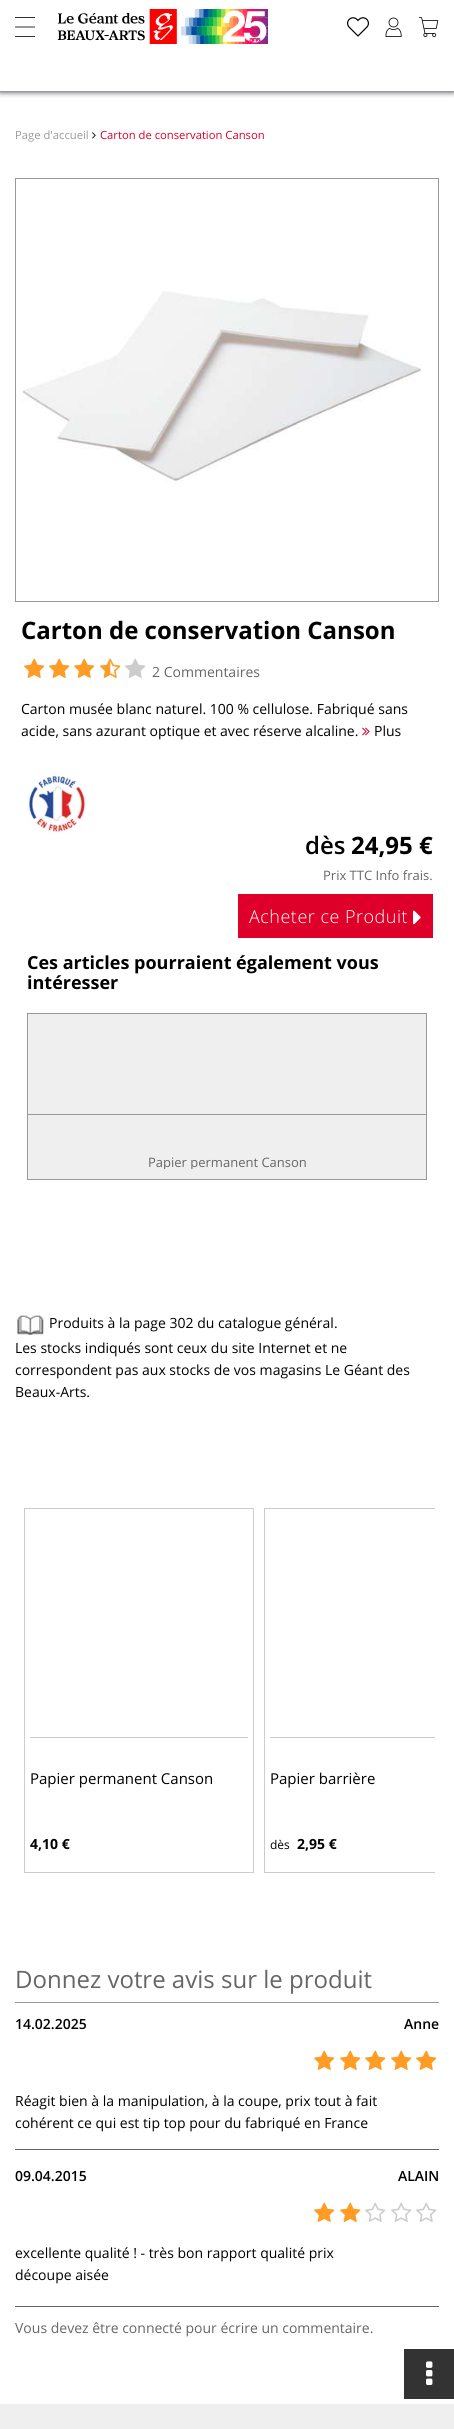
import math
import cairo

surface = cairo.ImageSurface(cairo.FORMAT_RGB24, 454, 2429)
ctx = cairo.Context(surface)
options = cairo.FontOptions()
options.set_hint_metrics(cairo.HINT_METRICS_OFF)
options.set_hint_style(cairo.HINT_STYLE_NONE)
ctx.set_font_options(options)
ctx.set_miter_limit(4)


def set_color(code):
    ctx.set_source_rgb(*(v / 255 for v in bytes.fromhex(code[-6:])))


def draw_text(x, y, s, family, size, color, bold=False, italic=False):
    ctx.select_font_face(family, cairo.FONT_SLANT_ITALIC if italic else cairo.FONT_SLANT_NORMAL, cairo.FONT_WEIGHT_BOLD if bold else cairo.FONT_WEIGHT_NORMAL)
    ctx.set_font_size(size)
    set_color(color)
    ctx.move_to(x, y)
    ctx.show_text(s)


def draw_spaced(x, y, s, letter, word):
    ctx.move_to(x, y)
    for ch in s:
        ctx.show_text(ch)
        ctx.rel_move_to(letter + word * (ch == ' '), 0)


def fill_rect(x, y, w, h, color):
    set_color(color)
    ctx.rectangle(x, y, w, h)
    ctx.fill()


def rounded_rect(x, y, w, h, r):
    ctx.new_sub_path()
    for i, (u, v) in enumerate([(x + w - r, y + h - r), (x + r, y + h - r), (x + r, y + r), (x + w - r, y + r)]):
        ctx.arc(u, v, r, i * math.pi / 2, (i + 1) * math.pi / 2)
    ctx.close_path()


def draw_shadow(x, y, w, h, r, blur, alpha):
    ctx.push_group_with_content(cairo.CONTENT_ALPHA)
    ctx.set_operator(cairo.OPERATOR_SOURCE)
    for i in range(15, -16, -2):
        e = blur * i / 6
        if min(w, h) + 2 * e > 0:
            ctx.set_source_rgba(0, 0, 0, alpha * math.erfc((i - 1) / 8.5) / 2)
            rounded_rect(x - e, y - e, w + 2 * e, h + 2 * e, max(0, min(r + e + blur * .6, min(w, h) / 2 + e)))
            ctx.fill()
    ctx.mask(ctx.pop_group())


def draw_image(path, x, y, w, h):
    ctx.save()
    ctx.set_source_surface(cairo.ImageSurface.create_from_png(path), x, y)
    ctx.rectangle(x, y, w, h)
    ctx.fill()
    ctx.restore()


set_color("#ffffff")
ctx.paint()
ctx.save()
ctx.rectangle(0, 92, 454, 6)
ctx.clip()
set_color("#41464d")
draw_shadow(0, 0, 454, 92, 0, 3, 1)
ctx.restore()
fill_rect(15, 17, 20, 1, "#333333")
ctx.new_path()
ctx.move_to(15, 27)
ctx.line_to(35, 27)
set_color("#000000")
ctx.set_line_width(0.8)
ctx.stroke()
fill_rect(15, 36, 20, 1, "#333333")
draw_image("assets/img1.png", 57, 9, 211, 35)
draw_image("assets/img2.png", 347, 17, 22, 20)
draw_image("assets/img3.png", 385, 17, 17, 20)
draw_image("assets/img4.png", 419, 17, 20, 20)
fill_rect(0, 91, 454, 1, "#999999")
draw_text(15, 139, "Page d'accueil", "Open Sans", 11.25, "#999999")
draw_image("assets/img5.png", 92, 132, 4, 7)
draw_text(100, 139, "Carton de conservation Canson", "Open Sans", 11.25, "#df0029")
draw_image("assets/img6.png", 22, 291, 400, 191)
ctx.rectangle(15.5, 178.5, 423, 423)
set_color("#999999")
ctx.set_line_width(1)
ctx.stroke()
draw_text(21, 639, "Carton de conservation Canson", "Open Sans", 24, "#000000", bold=True)
draw_image("assets/img7.png", 24, 658, 21, 20)
draw_image("assets/img7.png", 49, 658, 21, 20)
draw_image("assets/img7.png", 74, 658, 21, 20)
draw_image("assets/img8.png", 100, 658, 21, 20)
draw_image("assets/img9.png", 125, 658, 21, 20)
draw_text(152, 677, "2 Commentaires", "Open Sans", 14, "#666666")
draw_text(21, 714, "Carton musée blanc naturel. 100 % cellulose. Fabriqué sans", "Open Sans", 14, "#000000")
draw_text(21, 736, "acide, sans azurant optique et avec réserve alcaline.", "Open Sans", 14, "#000000")
draw_image("assets/img10.png", 362, 727, 8, 9)
draw_text(374, 736, "Plus", "Open Sans", 14, "#000000")
draw_image("assets/img11.png", 27, 774, 60, 60)
draw_text(305, 854, "dès", "Open Sans SemiBold", 24, "#000000")
draw_text(351, 854, "24,95 €", "Open Sans", 24, "#000000", bold=True)
draw_text(323, 880, "Prix TTC Info frais.", "Open Sans", 13, "#666666")
fill_rect(238, 894, 195, 44, "#df0029")
ctx.select_font_face("Open Sans Light")
ctx.set_font_size(18)
set_color("#ffffff")
draw_spaced(249, 923, "Acheter ce Produit", 0.5, 0)
draw_image("assets/img12.png", 413, 910, 8, 15)
draw_text(27, 969, "Ces articles pourraient également vous", "Open Sans", 18, "#000000", bold=True)
draw_text(27, 989, "intéresser", "Open Sans", 18, "#000000", bold=True)
set_color("#efefef")
ctx.rectangle(27.5, 1013.5, 399, 166)
ctx.fill_preserve()
set_color("#999999")
ctx.stroke()
fill_rect(28, 1114, 398, 1, "#999999")
ctx.save()
ctx.rectangle(38, 1155, 378, 14)
ctx.clip()
draw_text(148, 1167, "Papier permanent Canson", "Open Sans", 13, "#666666")
ctx.restore()
draw_image("assets/img13.png", 17, 1315, 27, 21)
draw_text(49, 1328, "Produits à la page 302 du catalogue général.", "Open Sans", 14, "#000000")
draw_text(15, 1353, "Les stocks indiqués sont ceux du site Internet et ne", "Open Sans", 14, "#000000")
draw_text(15, 1375, "correspondent pas aux stocks de vos magasins Le Géant des", "Open Sans", 14, "#000000")
draw_text(15, 1397, "Beaux-Arts.", "Open Sans", 14, "#000000")
ctx.rectangle(24.5, 1508.5, 229, 364)
set_color("#cccccc")
ctx.stroke()
fill_rect(30, 1737, 218, 1, "#cccccc")
draw_text(30, 1784, "Papier permanent Canson", "Open Sans", 15, "#000000")
draw_text(30, 1849, "4,10 €", "Open Sans", 14, "#000000", bold=True)
ctx.save()
ctx.rectangle(19, 1507, 416, 375)
ctx.clip()
ctx.rectangle(264.5, 1508.5, 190, 364)
set_color("#cccccc")
ctx.stroke()
ctx.restore()
fill_rect(270, 1737, 165, 1, "#cccccc")
draw_text(270, 1784, "Papier barrière", "Open Sans", 15, "#000000")
draw_text(270, 1849, "dès", "Open Sans", 12, "#000000")
draw_text(297, 1849, "2,95 €", "Open Sans", 14, "#000000", bold=True)
fill_rect(15, 2002, 424, 1, "#999999")
draw_text(15, 1988, "Donnez votre avis sur le produit", "Open Sans", 24, "#666666")
fill_rect(15, 2306, 424, 1, "#666666")
fill_rect(15, 2149, 424, 1, "#666666")
draw_text(15, 2029, "14.02.2025", "Open Sans SemiBold", 14, "#000000")
draw_text(404, 2029, "Anne", "Open Sans SemiBold", 14, "#000000")
draw_image("assets/img7.png", 314, 2050, 21, 20)
draw_image("assets/img7.png", 340, 2050, 21, 20)
draw_image("assets/img7.png", 365, 2050, 21, 20)
draw_image("assets/img7.png", 391, 2050, 21, 20)
draw_image("assets/img7.png", 416, 2050, 21, 20)
draw_text(15, 2106, "Réagit bien à la manipulation, à la coupe, prix tout à fait", "Open Sans", 14, "#000000")
draw_text(15, 2128, "cohérent ce qui est tip top pour du fabriqué en France", "Open Sans", 14, "#000000")
draw_text(15, 2181, "09.04.2015", "Open Sans SemiBold", 14, "#000000")
draw_text(398, 2181, "ALAIN", "Open Sans SemiBold", 14, "#000000")
draw_image("assets/img7.png", 314, 2202, 21, 20)
draw_image("assets/img7.png", 340, 2202, 21, 20)
draw_image("assets/img14.png", 365, 2202, 21, 20)
draw_image("assets/img14.png", 391, 2202, 21, 20)
draw_image("assets/img14.png", 416, 2202, 21, 20)
draw_text(15, 2258, "excellente qualité ! - très bon rapport qualité prix", "Open Sans", 14, "#000000")
draw_text(15, 2280, "découpe aisée", "Open Sans", 14, "#000000")
draw_text(15, 2333, "Vous devez être connecté pour écrire un commentaire.", "Open Sans", 14, "#666666")
fill_rect(0, 2404, 454, 25, "#efefef")
fill_rect(404, 2349, 50, 50, "#333333")
draw_image("assets/img15.png", 426, 2361, 7, 24)
surface.write_to_png("output.png")
